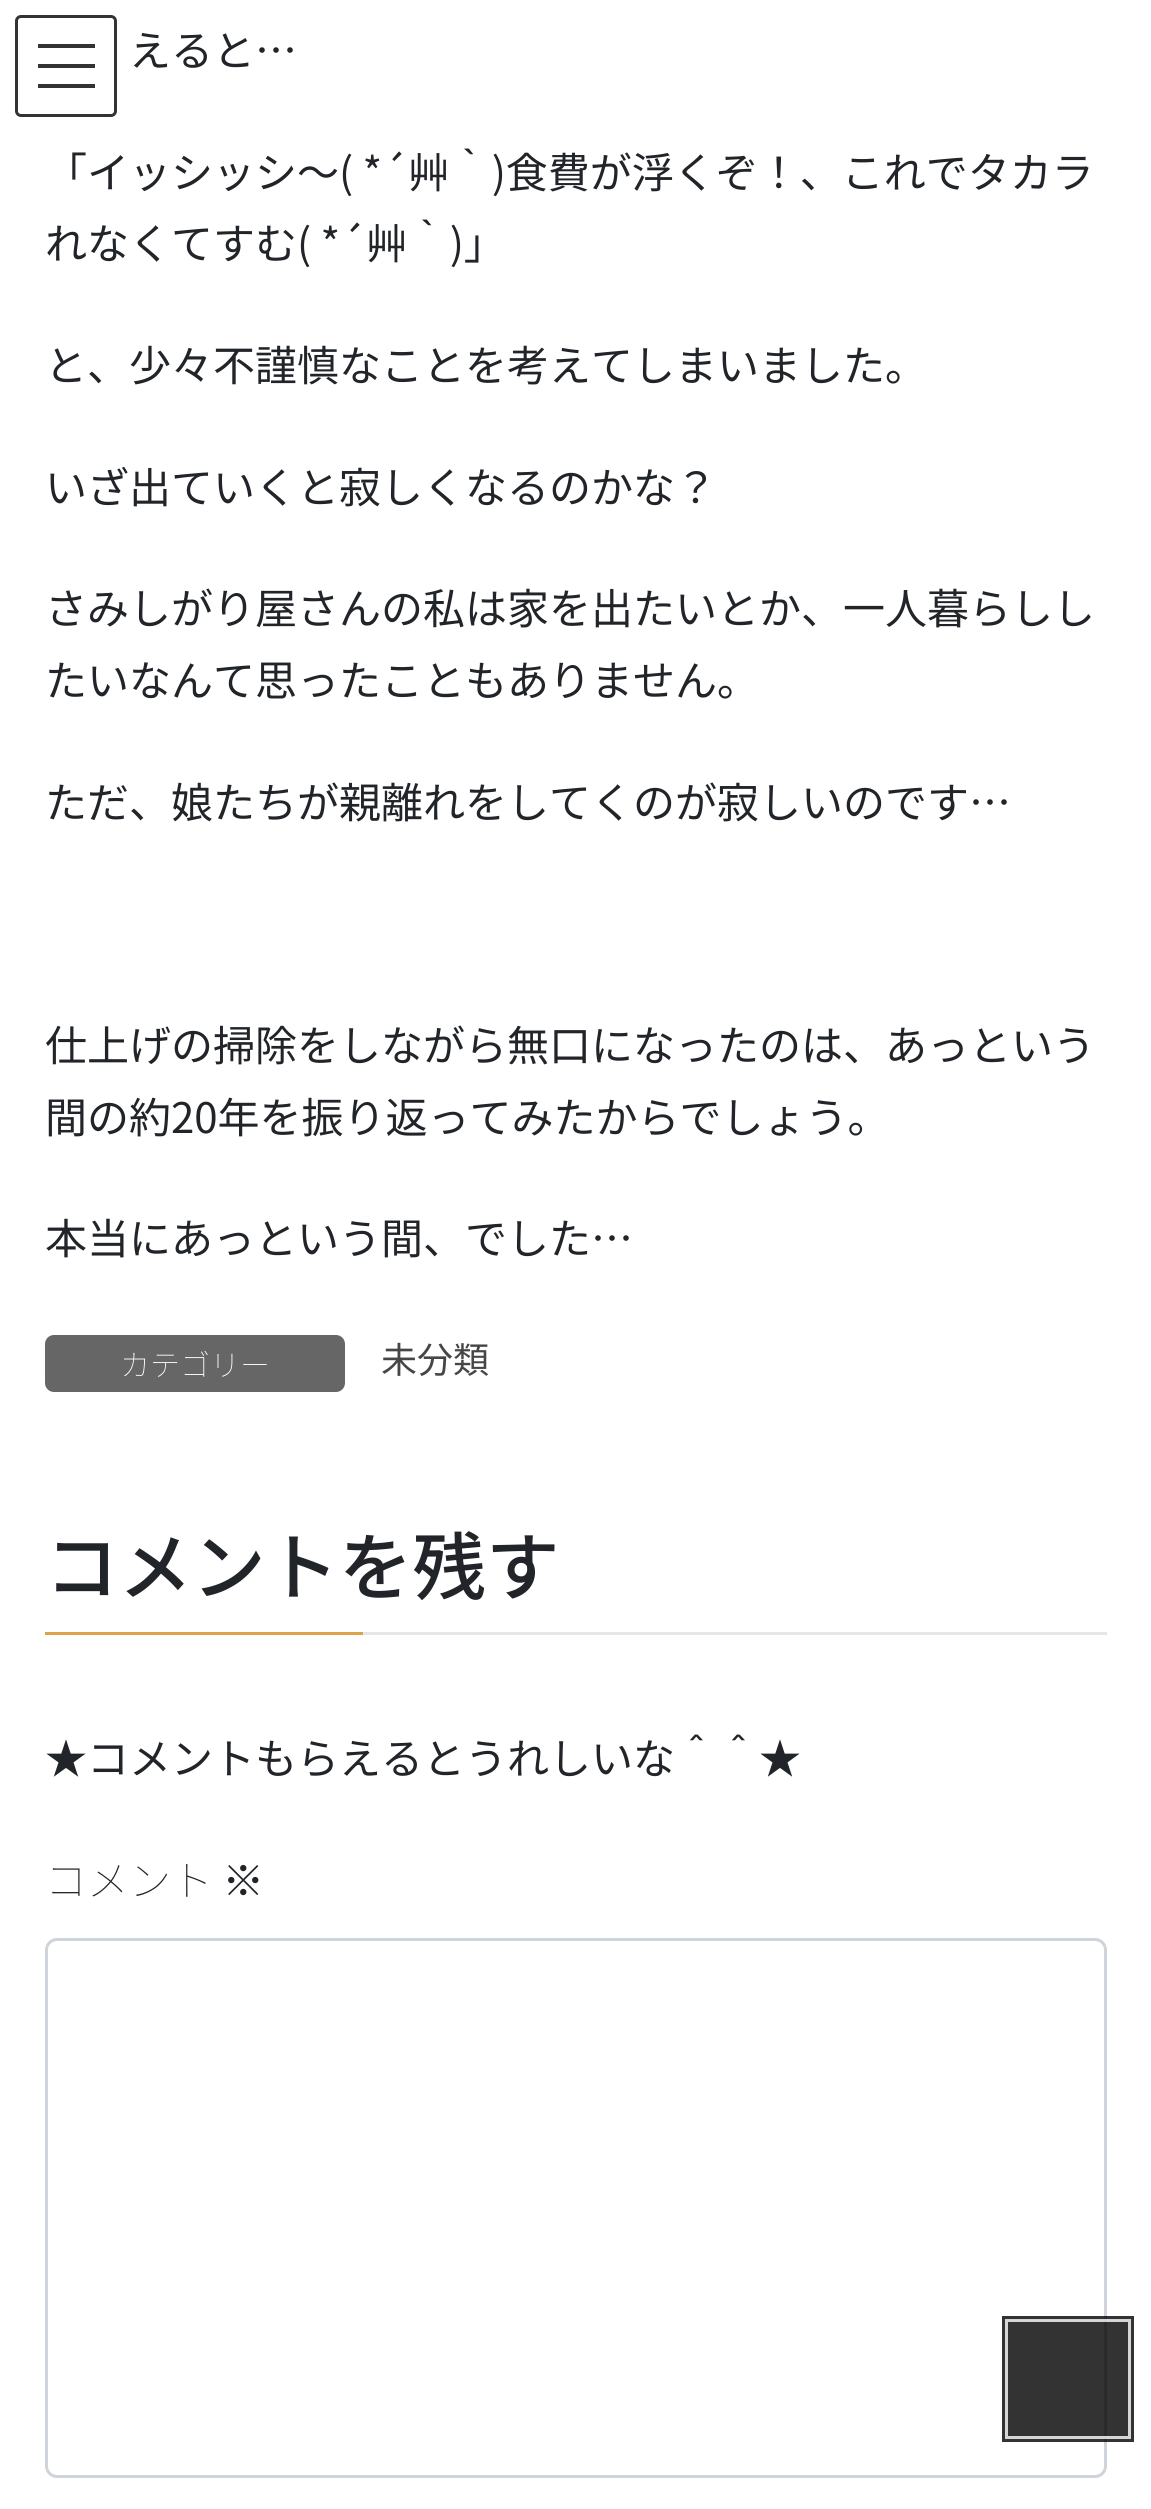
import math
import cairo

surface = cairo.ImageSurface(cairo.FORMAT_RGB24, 1151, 2509)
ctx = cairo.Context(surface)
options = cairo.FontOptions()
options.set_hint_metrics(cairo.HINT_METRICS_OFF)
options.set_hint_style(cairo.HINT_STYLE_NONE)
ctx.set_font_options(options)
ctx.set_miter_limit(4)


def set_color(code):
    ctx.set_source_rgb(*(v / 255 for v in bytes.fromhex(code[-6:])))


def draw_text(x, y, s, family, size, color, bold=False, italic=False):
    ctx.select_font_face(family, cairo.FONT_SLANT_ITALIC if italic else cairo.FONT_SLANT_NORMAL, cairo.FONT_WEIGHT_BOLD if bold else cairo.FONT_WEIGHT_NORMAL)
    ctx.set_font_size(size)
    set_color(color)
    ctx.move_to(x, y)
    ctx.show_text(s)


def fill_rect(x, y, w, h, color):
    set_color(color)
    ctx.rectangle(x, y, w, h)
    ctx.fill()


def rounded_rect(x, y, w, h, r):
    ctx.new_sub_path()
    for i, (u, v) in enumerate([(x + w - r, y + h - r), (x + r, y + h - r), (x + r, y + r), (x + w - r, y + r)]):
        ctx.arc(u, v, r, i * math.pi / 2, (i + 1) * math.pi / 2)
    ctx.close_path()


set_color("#ffffff")
ctx.paint()
ctx.set_source_rgba(0, 0, 0, 0.8)
ctx.rectangle(38, 44, 57, 4)
ctx.fill()
ctx.rectangle(38, 64, 57, 4)
ctx.fill()
fill_rect(38, 84, 57, 4, "#333333")
rounded_rect(16.5, 16.5, 99, 99, 4.5)
ctx.set_line_width(3)
ctx.stroke()
draw_text(129, 66, "えると…", "Noto Sans JP", 42, "#212529")
draw_text(45, 188, "「イッシッシ～( *´艸｀)食費が浮くぞ！、これでタカラ", "Noto Sans JP", 42, "#212529")
draw_text(45, 259, "れなくてすむ( *´艸｀)」", "Noto Sans JP", 42, "#212529")
draw_text(45, 381, "と、少々不謹慎なことを考えてしまいました。", "Noto Sans JP", 42, "#212529")
draw_text(45, 503, "いざ出ていくと寂しくなるのかな？", "Noto Sans JP", 42, "#212529")
draw_text(45, 624, "さみしがり屋さんの私は家を出たいとか、一人暮らしし", "Noto Sans JP", 42, "#212529")
draw_text(45, 696, "たいなんて思ったこともありません。", "Noto Sans JP", 42, "#212529")
draw_text(45, 818, "ただ、娘たちが親離れをしてくのが寂しいのです…", "Noto Sans JP", 42, "#212529")
draw_text(45, 1061, "仕上げの掃除をしながら無口になったのは、あっという", "Noto Sans JP", 42, "#212529")
draw_text(45, 1133, "間の約20年を振り返ってみたからでしょう。", "Noto Sans JP", 42, "#212529")
draw_text(45, 1254, "本当にあっという間、でした…", "Noto Sans JP", 42, "#212529")
set_color("#666666")
rounded_rect(45, 1335, 300, 57, 9)
ctx.fill()
draw_text(120, 1376, "カテゴリー", "Noto Sans JP Thin", 30, "#ffffff")
draw_text(381, 1373, "未分類", "Noto Sans JP", 36, "#464646")
fill_rect(363, 1632, 744, 3, "#e6e6e6")
draw_text(45, 1594, "コメントを残す", "Noto Sans JP Medium", 73.5, "#212529")
fill_rect(45, 1632, 318, 3, "#dda34b")
draw_text(45, 1774, "★コメントもらえるとうれしいな＾＾★", "Noto Sans JP", 42, "#212529")
draw_text(45, 1896, "コメント ※", "Noto Sans JP Thin", 42, "#212529")
rounded_rect(46.5, 1939.5, 1059, 537, 10.5)
set_color("#ced4da")
ctx.stroke()
ctx.rectangle(1005, 2319, 126, 120)
ctx.set_source_rgba(0, 0, 0, 0.8)
ctx.set_line_width(6)
ctx.stroke()
ctx.rectangle(1006.5, 2320.5, 123, 117)
ctx.set_source_rgba(1, 1, 1, 0.8)
ctx.set_line_width(3)
ctx.stroke()
ctx.set_source_rgba(0, 0, 0, 0.8)
ctx.rectangle(1008, 2322, 120, 114)
ctx.fill()
surface.write_to_png("output.png")
